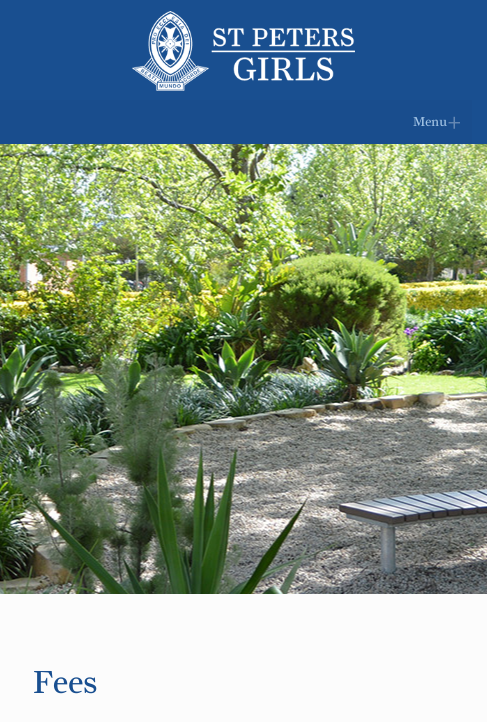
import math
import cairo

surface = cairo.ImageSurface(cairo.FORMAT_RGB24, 487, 722)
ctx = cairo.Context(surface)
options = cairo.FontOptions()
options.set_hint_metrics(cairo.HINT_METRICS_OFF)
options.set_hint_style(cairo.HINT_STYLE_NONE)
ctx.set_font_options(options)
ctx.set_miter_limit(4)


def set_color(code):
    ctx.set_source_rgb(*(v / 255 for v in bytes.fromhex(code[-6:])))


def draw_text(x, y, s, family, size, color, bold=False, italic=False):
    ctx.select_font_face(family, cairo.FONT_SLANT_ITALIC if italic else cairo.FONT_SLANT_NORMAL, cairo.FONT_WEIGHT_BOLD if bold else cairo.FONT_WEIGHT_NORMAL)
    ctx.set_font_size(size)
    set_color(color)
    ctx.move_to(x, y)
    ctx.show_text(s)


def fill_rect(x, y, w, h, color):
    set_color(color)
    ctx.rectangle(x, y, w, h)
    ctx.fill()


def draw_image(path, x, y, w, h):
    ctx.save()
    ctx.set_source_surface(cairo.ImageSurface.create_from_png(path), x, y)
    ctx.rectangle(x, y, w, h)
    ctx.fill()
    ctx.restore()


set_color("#fcfcfc")
ctx.paint()
fill_rect(0, 0, 487, 144, "#194f90")
draw_image("assets/img1.png", 132, 11, 223, 80)
fill_rect(0, 100, 472, 44, "#194d8d")
draw_text(413, 126, "Menu", "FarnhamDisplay", 13, "#a3c4e5")
draw_text(447, 132, "+", "FarnhamDisplay", 30, "#6588b3")
draw_image("assets/img2.png", 0, 144, 487, 450)
draw_text(33, 693, "Fees", "FarnhamDisplay", 32, "#194f90")
surface.write_to_png("output.png")
